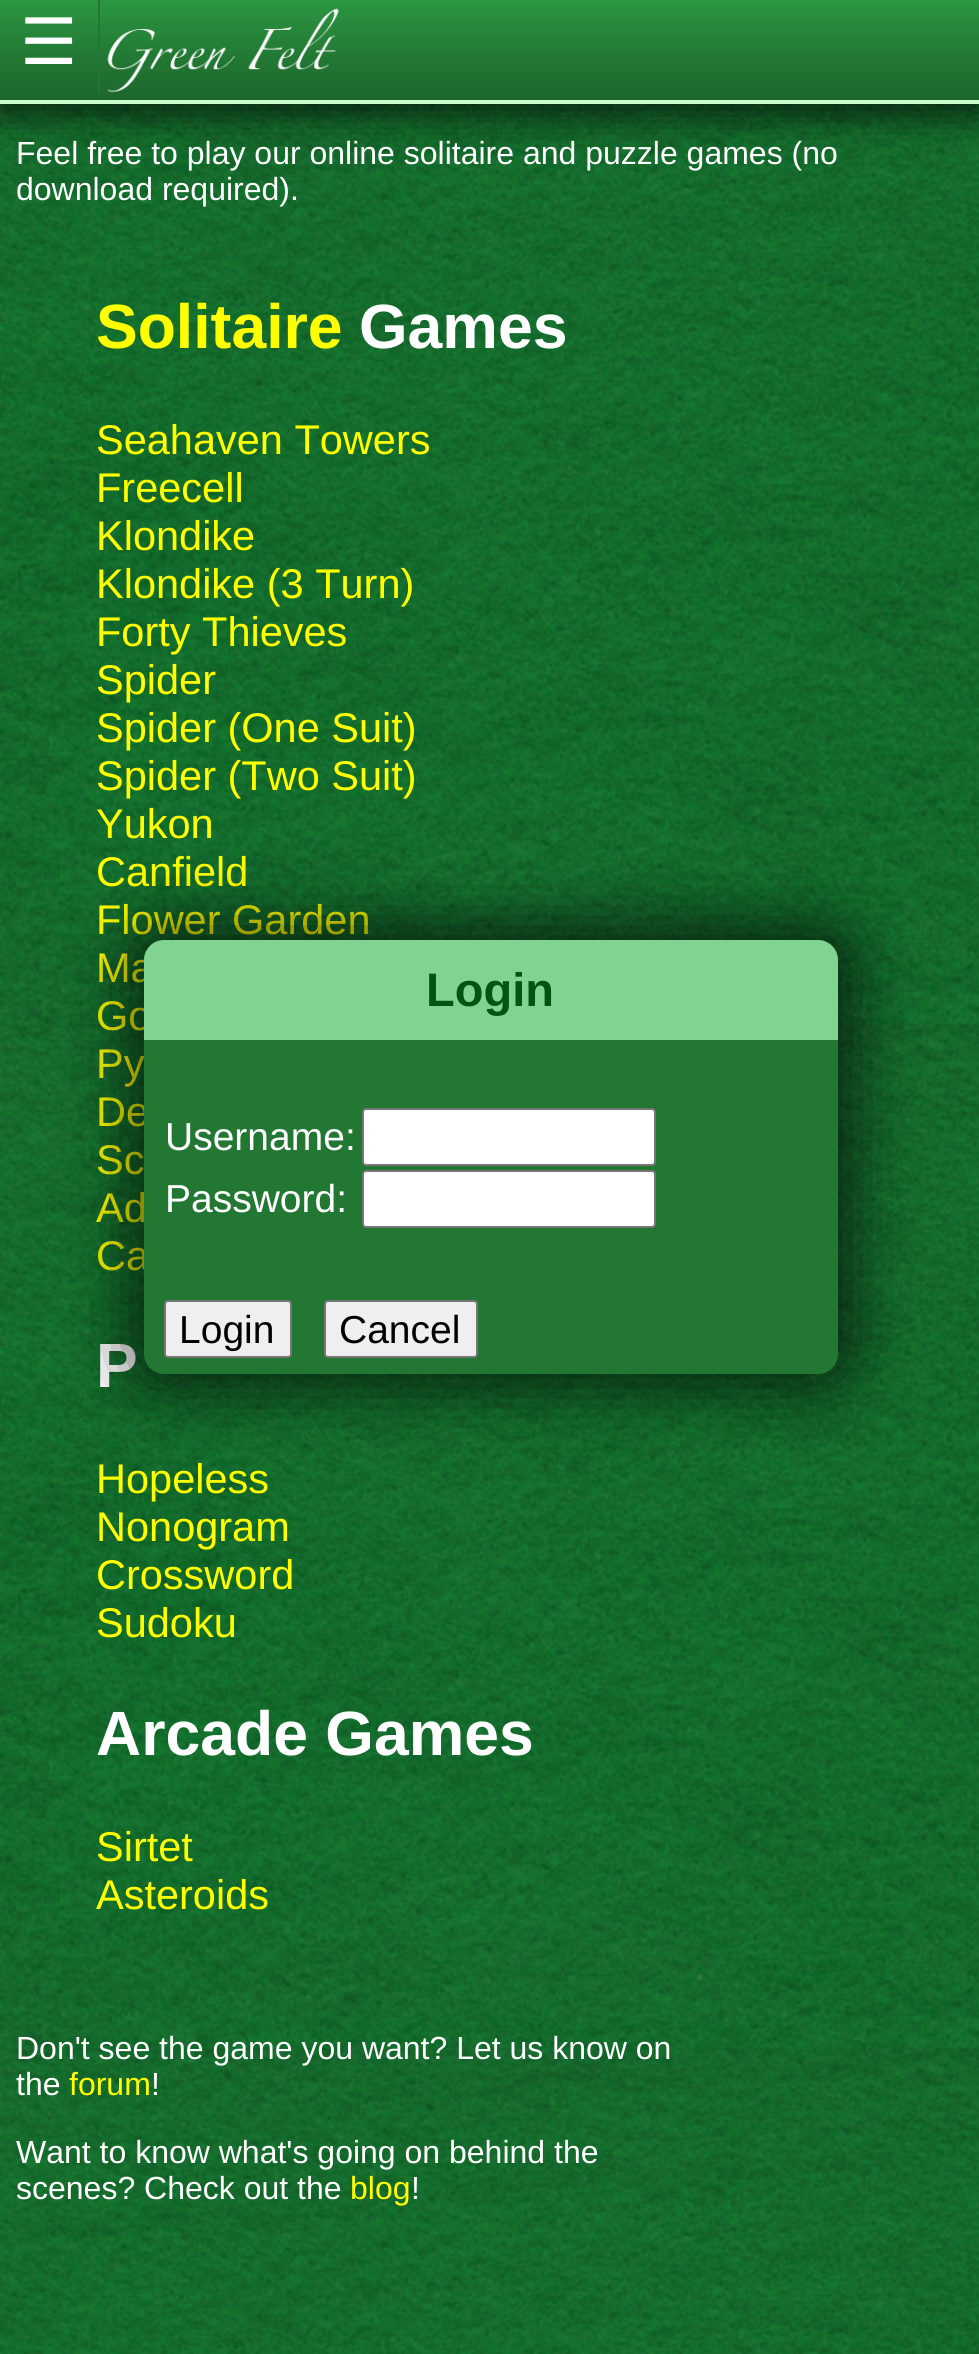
import math
import cairo

surface = cairo.ImageSurface(cairo.FORMAT_RGB24, 979, 2354)
ctx = cairo.Context(surface)
options = cairo.FontOptions()
options.set_hint_metrics(cairo.HINT_METRICS_OFF)
options.set_hint_style(cairo.HINT_STYLE_NONE)
ctx.set_font_options(options)
ctx.set_miter_limit(4)


def set_color(code):
    ctx.set_source_rgb(*(v / 255 for v in bytes.fromhex(code[-6:])))


def draw_text(x, y, s, family, size, color, bold=False, italic=False):
    ctx.select_font_face(family, cairo.FONT_SLANT_ITALIC if italic else cairo.FONT_SLANT_NORMAL, cairo.FONT_WEIGHT_BOLD if bold else cairo.FONT_WEIGHT_NORMAL)
    ctx.set_font_size(size)
    set_color(color)
    ctx.move_to(x, y)
    ctx.show_text(s)


def fill_rect(x, y, w, h, color):
    set_color(color)
    ctx.rectangle(x, y, w, h)
    ctx.fill()


def rounded_rect(x, y, w, h, r):
    ctx.new_sub_path()
    for i, (u, v) in enumerate([(x + w - r, y + h - r), (x + r, y + h - r), (x + r, y + r), (x + w - r, y + r)]):
        ctx.arc(u, v, r, i * math.pi / 2, (i + 1) * math.pi / 2)
    ctx.close_path()


def draw_shadow(x, y, w, h, r, blur, alpha):
    ctx.push_group_with_content(cairo.CONTENT_ALPHA)
    ctx.set_operator(cairo.OPERATOR_SOURCE)
    for i in range(15, -16, -2):
        e = blur * i / 6
        if min(w, h) + 2 * e > 0:
            ctx.set_source_rgba(0, 0, 0, alpha * math.erfc((i - 1) / 8.5) / 2)
            rounded_rect(x - e, y - e, w + 2 * e, h + 2 * e, max(0, min(r + e + blur * .6, min(w, h) / 2 + e)))
            ctx.fill()
    ctx.mask(ctx.pop_group())


def draw_image(path, x, y, w, h):
    ctx.save()
    ctx.set_source_surface(cairo.ImageSurface.create_from_png(path), x, y)
    ctx.rectangle(x, y, w, h)
    ctx.fill()
    ctx.restore()


set_color("#ffffff")
ctx.paint()
draw_image("assets/img1.png", 0, 104, 979, 2250)
set_color("#000000")
draw_shadow(0, 10, 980, 104, 0, 18, 0.7)
gradient = cairo.LinearGradient(490, 0, 490, 100)
gradient.add_color_stop_rgba(0, 0.169, 0.592, 0.255, 1)
gradient.add_color_stop_rgba(0.6, 0.133, 0.467, 0.2, 1)
gradient.add_color_stop_rgba(1, 0.114, 0.404, 0.173, 1)
ctx.set_source(gradient)
ctx.rectangle(0, 0, 979, 100)
ctx.fill()
fill_rect(0, 100, 979, 4, "#ccffcc")
fill_rect(98, 0, 2, 92, "#227733")
draw_text(20, 64, "☰", "DejaVu Sans", 64, "#ffffff")
draw_image("assets/img2.png", 107, 8, 232, 84)
draw_text(16, 164, "Feel free to play our online solitaire and puzzle games (no", "Liberation Sans", 32, "#ffffff")
draw_text(16, 200, "download required).", "Liberation Sans", 32, "#ffffff")
draw_text(96, 348, "Solitaire", "Liberation Sans", 62.5, "#ffff00", bold=True)
draw_text(359, 348, "Games", "Liberation Sans", 62.5, "#ffffff", bold=True)
draw_text(96, 454, "Seahaven Towers", "Liberation Sans", 41.5, "#ffff00")
draw_text(96, 502, "Freecell", "Liberation Sans", 41.5, "#ffff00")
draw_text(96, 550, "Klondike", "Liberation Sans", 41.5, "#ffff00")
draw_text(96, 598, "Klondike (3 Turn)", "Liberation Sans", 41.5, "#ffff00")
draw_text(96, 646, "Forty Thieves", "Liberation Sans", 41.5, "#ffff00")
draw_text(96, 694, "Spider", "Liberation Sans", 41.5, "#ffff00")
draw_text(96, 742, "Spider (One Suit)", "Liberation Sans", 41.5, "#ffff00")
draw_text(96, 790, "Spider (Two Suit)", "Liberation Sans", 41.5, "#ffff00")
draw_text(96, 838, "Yukon", "Liberation Sans", 41.5, "#ffff00")
draw_text(96, 886, "Canfield", "Liberation Sans", 41.5, "#ffff00")
draw_text(96, 934, "Flower Garden", "Liberation Sans", 41.5, "#ffff00")
draw_text(96, 982, "Ma", "Liberation Sans", 41.5, "#ffff00")
draw_text(96, 1030, "Go", "Liberation Sans", 41.5, "#ffff00")
draw_text(96, 1078, "Py", "Liberation Sans", 41.5, "#ffff00")
draw_text(96, 1126, "De", "Liberation Sans", 41.5, "#ffff00")
draw_text(96, 1174, "Sc", "Liberation Sans", 41.5, "#ffff00")
draw_text(96, 1222, "Ad", "Liberation Sans", 41.5, "#ffff00")
draw_text(96, 1270, "Ca", "Liberation Sans", 41.5, "#ffff00")
draw_text(96, 1387, "P", "Liberation Sans", 62.5, "#ffffff", bold=True)
draw_text(96, 1493, "Hopeless", "Liberation Sans", 41.5, "#ffff00")
draw_text(96, 1541, "Nonogram", "Liberation Sans", 41.5, "#ffff00")
draw_text(96, 1589, "Crossword", "Liberation Sans", 41.5, "#ffff00")
draw_text(96, 1637, "Sudoku", "Liberation Sans", 41.5, "#ffff00")
draw_text(96, 1755, "Arcade Games", "Liberation Sans", 62.5, "#ffffff", bold=True)
draw_text(96, 1861, "Sirtet", "Liberation Sans", 41.5, "#ffff00")
draw_text(96, 1909, "Asteroids", "Liberation Sans", 41.5, "#ffff00")
draw_text(16, 2059, "Don't see the game you want? Let us know on", "Liberation Sans", 32, "#ffffff")
draw_text(16, 2095, "the", "Liberation Sans", 32, "#ffffff")
draw_text(69, 2095, "forum", "Liberation Sans", 32, "#ffff00")
draw_text(151, 2095, "!", "Liberation Sans", 32, "#ffffff")
draw_text(16, 2163, "Want to know what's going on behind the", "Liberation Sans", 32, "#ffffff")
draw_text(16, 2199, "scenes? Check out the", "Liberation Sans", 32, "#ffffff")
draw_text(350, 2199, "blog", "Liberation Sans", 32, "#ffff00")
draw_text(411, 2199, "!", "Liberation Sans", 32, "#ffffff")
set_color("#000000")
draw_shadow(124, 920, 734, 474, 44, 30, 0.6)
set_color("#227733")
ctx.new_path()
ctx.move_to(168, 940)
ctx.line_to(814, 940)
ctx.curve_to(827.5, 940, 838, 950.5, 838, 964)
ctx.line_to(838, 1354)
ctx.curve_to(838, 1365, 829, 1374, 818, 1374)
ctx.line_to(164, 1374)
ctx.curve_to(153, 1374, 144, 1365, 144, 1354)
ctx.line_to(144, 964)
ctx.curve_to(144, 950.5, 154.5, 940, 168, 940)
ctx.close_path()
ctx.fill()
set_color("#81d391")
ctx.new_path()
ctx.move_to(164, 940)
ctx.line_to(818, 940)
ctx.curve_to(829, 940, 838, 949, 838, 960)
ctx.line_to(838, 1040)
ctx.line_to(144, 1040)
ctx.line_to(144, 960)
ctx.curve_to(144, 949, 153, 940, 164, 940)
ctx.close_path()
ctx.fill()
draw_text(426, 1006, "Login", "Liberation Sans", 47, "#005511", bold=True)
draw_text(165, 1150, "Username:", "Liberation Sans", 39, "#ffffff")
rounded_rect(363, 1109, 292, 56, 3)
ctx.fill_preserve()
set_color("#767676")
ctx.stroke()
draw_text(165, 1212, "Password:", "Liberation Sans", 39, "#ffffff")
rounded_rect(363, 1171, 292, 56, 3)
ctx.fill_preserve()
set_color("#767676")
ctx.stroke()
set_color("#efefef")
rounded_rect(165, 1301, 126, 56, 3)
ctx.fill_preserve()
set_color("#767676")
ctx.stroke()
draw_text(179, 1343, "Login", "Liberation Sans", 39, "#000000")
set_color("#efefef")
rounded_rect(325, 1301, 152, 56, 3)
ctx.fill_preserve()
set_color("#767676")
ctx.stroke()
draw_text(339, 1343, "Cancel", "Liberation Sans", 39, "#000000")
surface.write_to_png("output.png")
